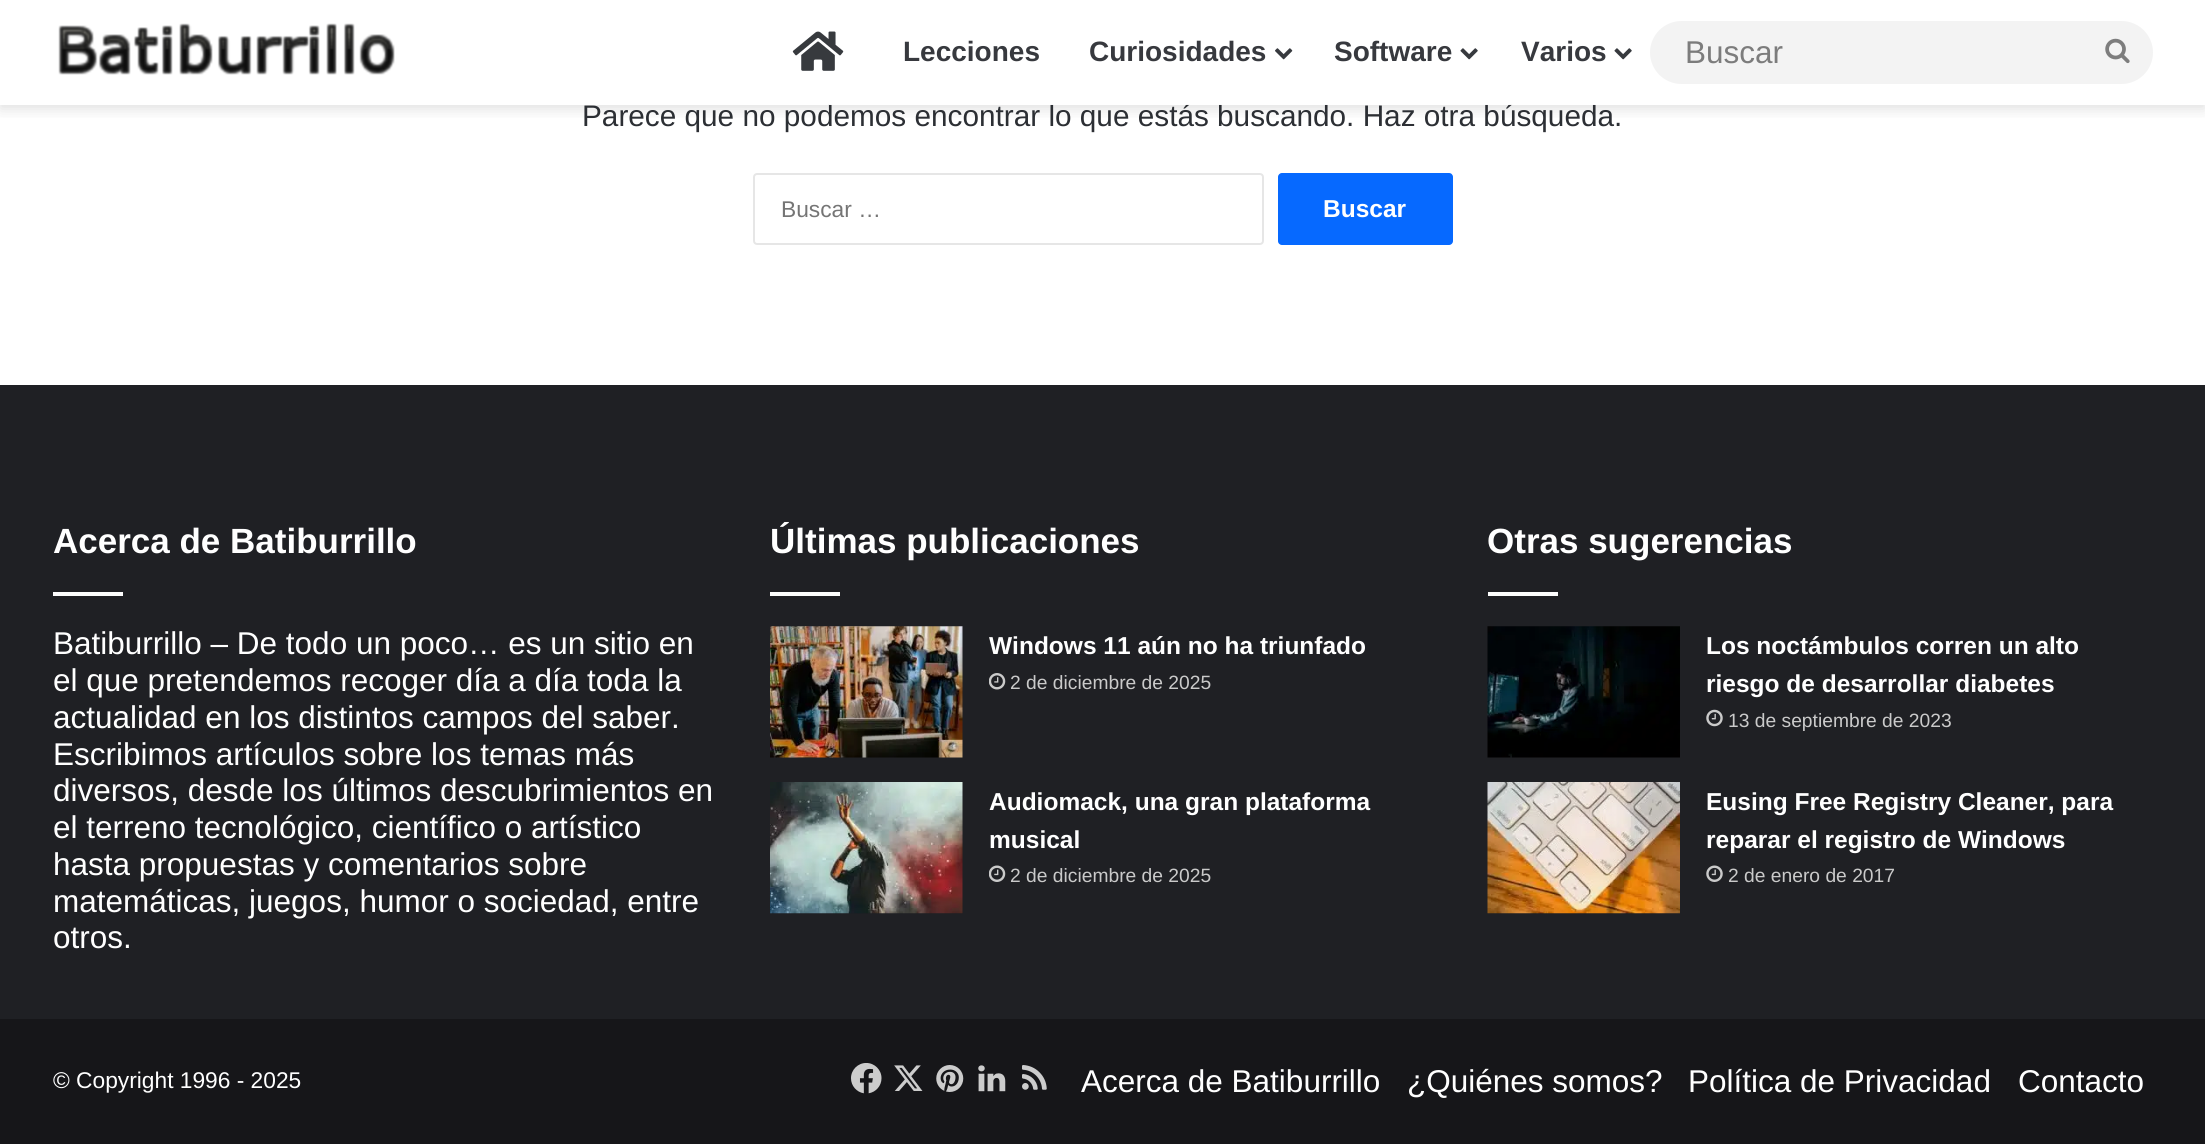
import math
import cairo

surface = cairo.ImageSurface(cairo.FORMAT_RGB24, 2205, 1144)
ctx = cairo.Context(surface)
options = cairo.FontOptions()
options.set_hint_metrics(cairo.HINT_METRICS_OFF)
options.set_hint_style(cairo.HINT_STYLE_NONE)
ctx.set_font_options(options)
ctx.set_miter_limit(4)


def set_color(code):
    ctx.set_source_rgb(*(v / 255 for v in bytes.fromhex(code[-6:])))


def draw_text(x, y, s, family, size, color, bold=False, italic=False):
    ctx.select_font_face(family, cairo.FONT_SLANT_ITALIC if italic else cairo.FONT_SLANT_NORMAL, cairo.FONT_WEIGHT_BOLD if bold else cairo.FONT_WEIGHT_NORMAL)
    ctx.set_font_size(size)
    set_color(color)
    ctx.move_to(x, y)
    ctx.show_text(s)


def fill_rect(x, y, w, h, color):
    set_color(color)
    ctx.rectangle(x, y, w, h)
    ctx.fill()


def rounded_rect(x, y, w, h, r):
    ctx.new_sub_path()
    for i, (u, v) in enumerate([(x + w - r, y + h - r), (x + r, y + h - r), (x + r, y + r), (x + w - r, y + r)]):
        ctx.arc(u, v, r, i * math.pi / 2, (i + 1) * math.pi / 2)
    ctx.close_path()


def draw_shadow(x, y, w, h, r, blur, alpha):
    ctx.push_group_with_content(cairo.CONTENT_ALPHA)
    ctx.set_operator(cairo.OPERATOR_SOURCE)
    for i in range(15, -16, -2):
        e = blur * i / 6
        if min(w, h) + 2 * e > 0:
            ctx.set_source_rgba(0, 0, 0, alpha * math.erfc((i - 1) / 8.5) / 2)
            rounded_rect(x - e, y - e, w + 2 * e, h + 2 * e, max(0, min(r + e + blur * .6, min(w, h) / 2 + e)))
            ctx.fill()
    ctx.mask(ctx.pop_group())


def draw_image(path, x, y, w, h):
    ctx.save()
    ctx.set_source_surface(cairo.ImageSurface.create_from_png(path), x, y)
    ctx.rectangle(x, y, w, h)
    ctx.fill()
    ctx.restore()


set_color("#ffffff")
ctx.paint()
ctx.save()
ctx.rectangle(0, 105, 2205, 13)
ctx.clip()
set_color("#636363")
draw_shadow(0, 4, 2205, 105, 0, 7, 0.2)
ctx.restore()
draw_text(582, 126, "Parece que no podemos encontrar lo que estás buscando. Haz otra búsqueda.", "Liberation Sans", 29.75, "#2c2f34")
ctx.set_source_rgba(1, 1, 1, 0.95)
ctx.rectangle(829, 104, 767, 1)
ctx.fill()
draw_image("assets/img1.png", 58, 23, 337, 52)
draw_image("assets/img2.png", 792, 31, 52, 40)
draw_text(903, 61, "Lecciones", "Liberation Sans", 28, "#37393e", bold=True)
draw_text(1089, 61, "Curiosidades", "Liberation Sans", 28, "#37393e", bold=True)
draw_image("assets/img3.png", 1275, 48, 18, 12)
draw_text(1334, 61, "Software", "Liberation Sans", 28, "#37393e", bold=True)
draw_image("assets/img4.png", 1460, 48, 18, 12)
draw_text(1521, 61, "Varios", "Liberation Sans", 28, "#37393e", bold=True)
draw_image("assets/img4.png", 1614, 48, 18, 12)
set_color("#f3f3f3")
rounded_rect(1650, 21, 503, 63, 31.5)
ctx.fill()
draw_text(1685, 63, "Buscar", "Liberation Sans", 31.5, "#7c7c7c")
draw_image("assets/img5.png", 2105, 38, 25, 26)
rounded_rect(754, 174, 509, 70, 3)
set_color("#e6e6e6")
ctx.stroke()
draw_text(781, 217, "Buscar …", "Liberation Sans", 22.75, "#757575")
set_color("#0669ff")
rounded_rect(1278, 173, 175, 72, 4)
ctx.fill()
draw_text(1323, 217, "Buscar", "Liberation Sans", 24.5, "#ffffff", bold=True)
fill_rect(0, 385, 2205, 634, "#1f2024")
draw_text(53, 553, "Acerca de Batiburrillo", "Liberation Sans", 35, "#ffffff", bold=True)
fill_rect(53, 592, 70, 4, "#fdfdfd")
draw_text(53, 654, "Batiburrillo – De todo un poco… es un sitio en", "Liberation Sans", 31.5, "#ffffff")
draw_text(53, 691, "el que pretendemos recoger día a día toda la", "Liberation Sans", 31.5, "#ffffff")
draw_text(53, 728, "actualidad en los distintos campos del saber.", "Liberation Sans", 31.5, "#ffffff")
draw_text(53, 765, "Escribimos artículos sobre los temas más", "Liberation Sans", 31.5, "#ffffff")
draw_text(53, 801, "diversos, desde los últimos descubrimientos en", "Liberation Sans", 31.5, "#ffffff")
draw_text(53, 838, "el terreno tecnológico, científico o artístico", "Liberation Sans", 31.5, "#ffffff")
draw_text(53, 875, "hasta propuestas y comentarios sobre", "Liberation Sans", 31.5, "#ffffff")
draw_text(53, 912, "matemáticas, juegos, humor o sociedad, entre", "Liberation Sans", 31.5, "#ffffff")
draw_text(53, 948, "otros.", "Liberation Sans", 31.5, "#ffffff")
draw_text(770, 553, "Últimas publicaciones", "Liberation Sans", 35, "#ffffff", bold=True)
fill_rect(770, 592, 70, 4, "#fdfdfd")
draw_image("assets/img6.png", 770, 626, 193, 132)
draw_text(989, 654, "Windows 11 aún no ha triunfado", "Liberation Sans", 24.5, "#ffffff", bold=True)
draw_image("assets/img7.png", 989, 673, 17, 17)
draw_text(1010, 689, "2 de diciembre de 2025", "Liberation Sans", 19.25, "#cacaca")
draw_image("assets/img8.png", 770, 782, 193, 132)
draw_text(989, 810, "Audiomack, una gran plataforma", "Liberation Sans", 24.5, "#ffffff", bold=True)
draw_text(989, 848, "musical", "Liberation Sans", 24.5, "#ffffff", bold=True)
draw_image("assets/img9.png", 989, 865, 17, 17)
draw_text(1010, 882, "2 de diciembre de 2025", "Liberation Sans", 19.25, "#cacaca")
draw_text(1487, 553, "Otras sugerencias", "Liberation Sans", 35, "#ffffff", bold=True)
fill_rect(1488, 592, 70, 4, "#fdfdfd")
draw_image("assets/img10.png", 1487, 626, 193, 132)
draw_text(1706, 654, "Los noctámbulos corren un alto", "Liberation Sans", 24.5, "#ffffff", bold=True)
draw_text(1706, 692, "riesgo de desarrollar diabetes", "Liberation Sans", 24.5, "#ffffff", bold=True)
draw_image("assets/img11.png", 1706, 709, 17, 18)
draw_text(1728, 727, "13 de septiembre de 2023", "Liberation Sans", 19.25, "#cacaca")
draw_image("assets/img12.png", 1487, 782, 193, 132)
draw_text(1706, 810, "Eusing Free Registry Cleaner, para", "Liberation Sans", 24.5, "#ffffff", bold=True)
draw_text(1706, 848, "reparar el registro de Windows", "Liberation Sans", 24.5, "#ffffff", bold=True)
draw_image("assets/img13.png", 1706, 865, 17, 17)
draw_text(1728, 882, "2 de enero de 2017", "Liberation Sans", 19.25, "#cacaca")
fill_rect(0, 1019, 2205, 125, "#161619")
draw_text(53, 1088, "© Copyright 1996 - 2025", "Liberation Sans", 22.75, "#ffffff")
draw_image("assets/img14.png", 851, 1063, 31, 31)
draw_image("assets/img15.png", 894, 1065, 29, 26)
draw_image("assets/img16.png", 936, 1065, 28, 27)
draw_image("assets/img17.png", 978, 1065, 28, 27)
draw_image("assets/img18.png", 1022, 1065, 25, 25)
draw_text(1081, 1092, "Acerca de Batiburrillo", "Liberation Sans", 31.5, "#ffffff")
draw_text(1407, 1092, "¿Quiénes somos?", "Liberation Sans", 31.5, "#ffffff")
draw_text(1688, 1092, "Política de Privacidad", "Liberation Sans", 31.5, "#ffffff")
draw_text(2018, 1092, "Contacto", "Liberation Sans", 31.5, "#ffffff")
surface.write_to_png("output.png")
